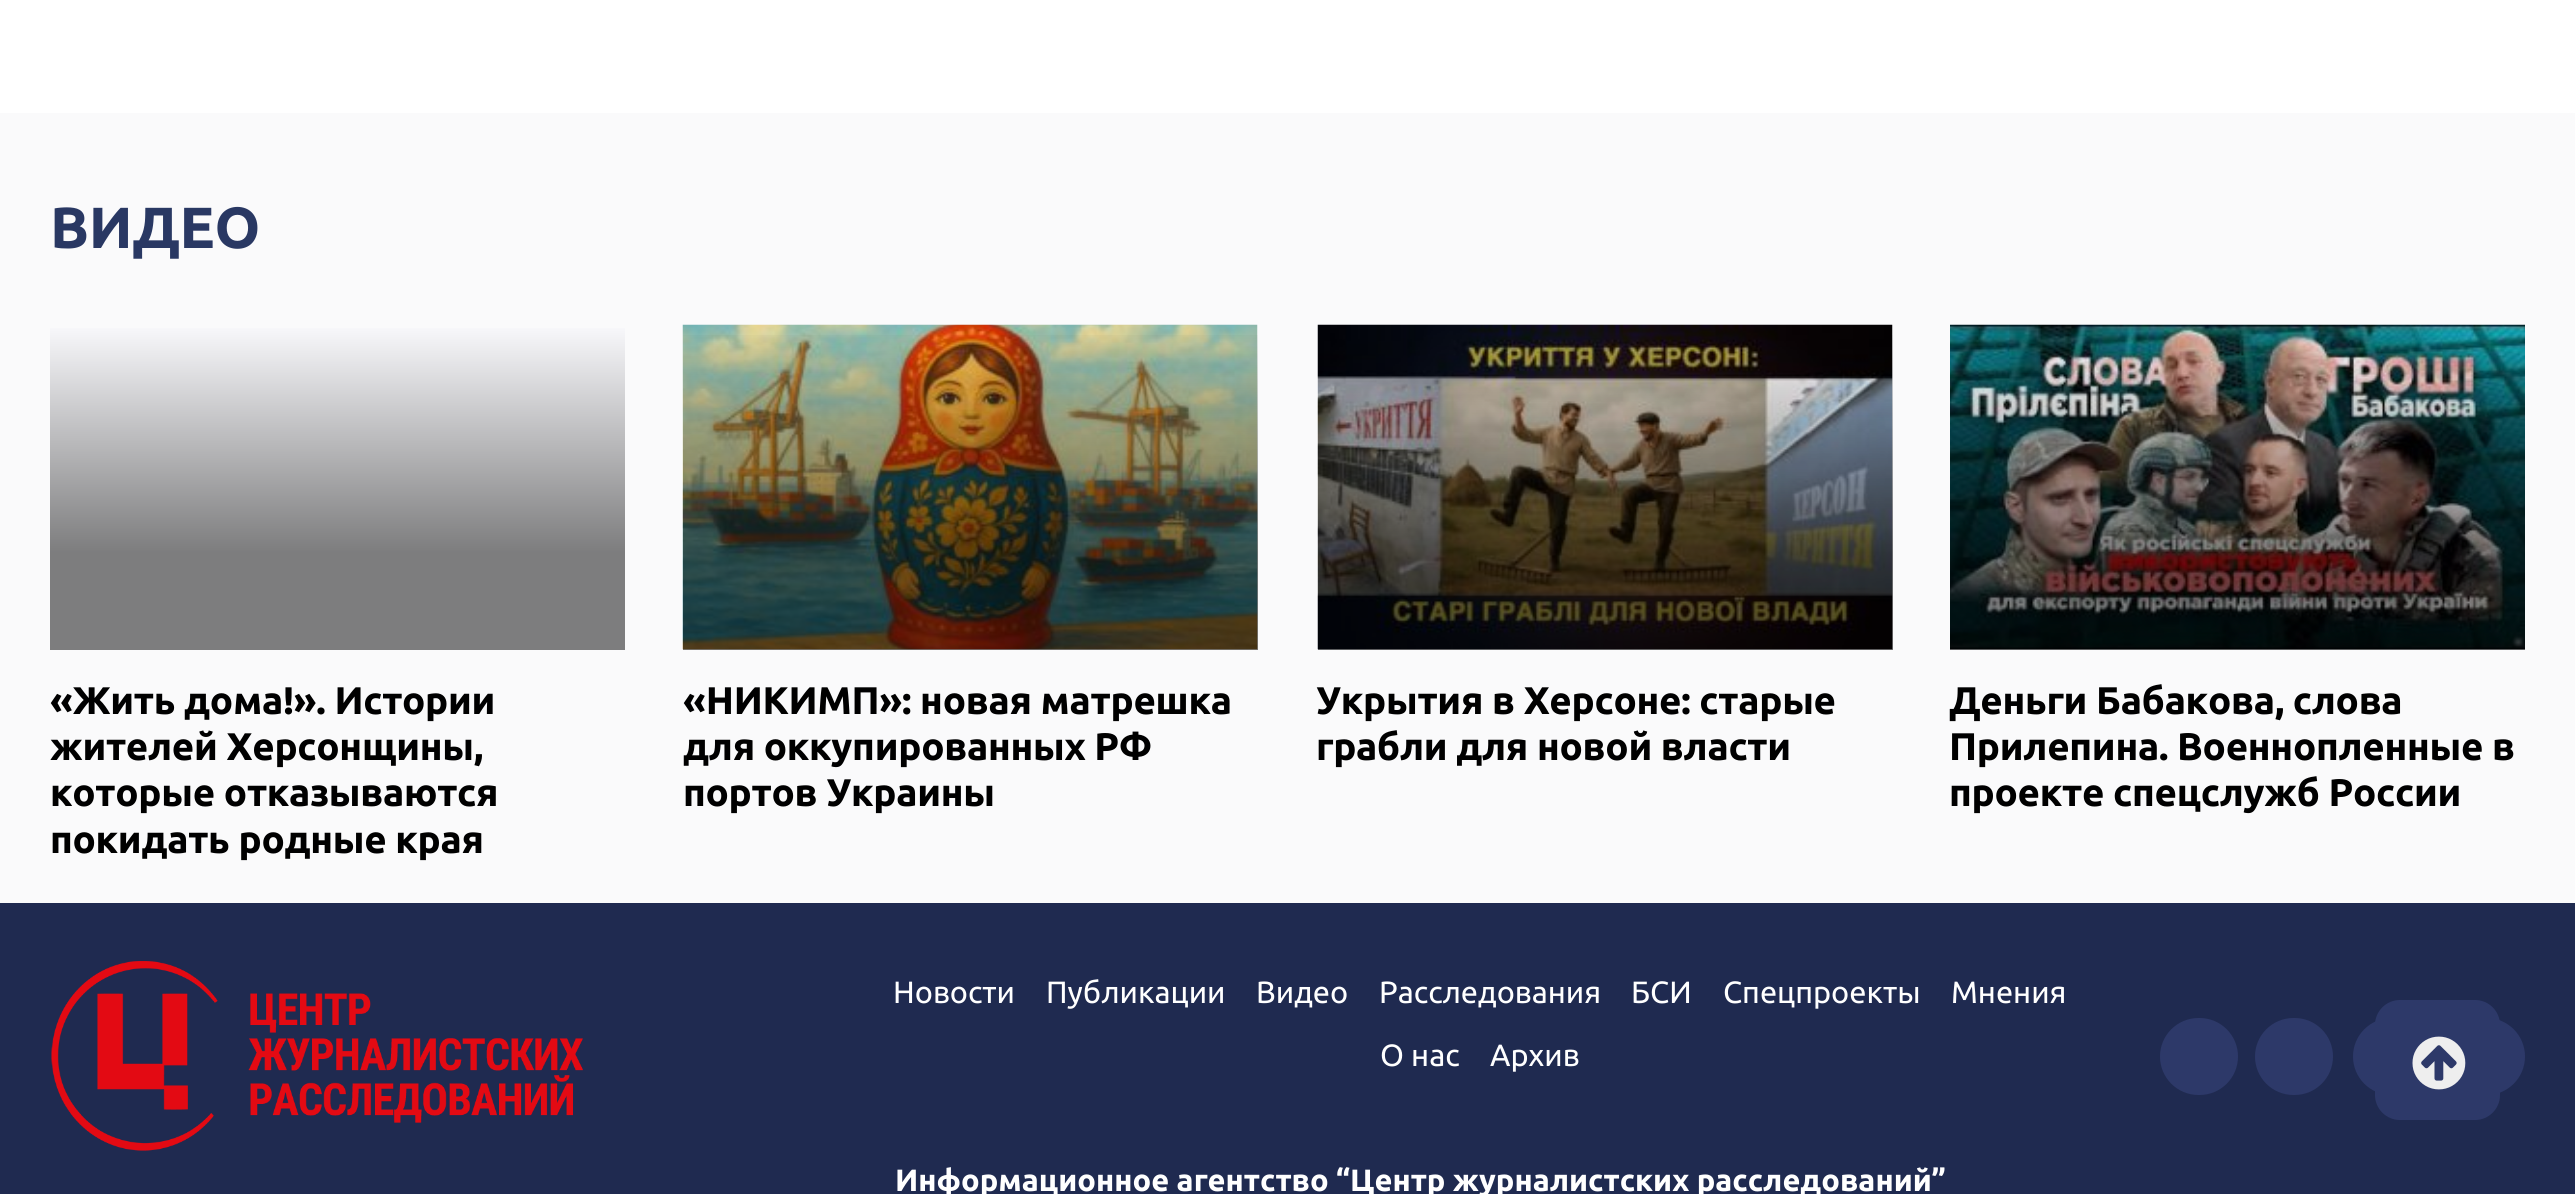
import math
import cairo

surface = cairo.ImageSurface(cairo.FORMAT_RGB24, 2575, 1194)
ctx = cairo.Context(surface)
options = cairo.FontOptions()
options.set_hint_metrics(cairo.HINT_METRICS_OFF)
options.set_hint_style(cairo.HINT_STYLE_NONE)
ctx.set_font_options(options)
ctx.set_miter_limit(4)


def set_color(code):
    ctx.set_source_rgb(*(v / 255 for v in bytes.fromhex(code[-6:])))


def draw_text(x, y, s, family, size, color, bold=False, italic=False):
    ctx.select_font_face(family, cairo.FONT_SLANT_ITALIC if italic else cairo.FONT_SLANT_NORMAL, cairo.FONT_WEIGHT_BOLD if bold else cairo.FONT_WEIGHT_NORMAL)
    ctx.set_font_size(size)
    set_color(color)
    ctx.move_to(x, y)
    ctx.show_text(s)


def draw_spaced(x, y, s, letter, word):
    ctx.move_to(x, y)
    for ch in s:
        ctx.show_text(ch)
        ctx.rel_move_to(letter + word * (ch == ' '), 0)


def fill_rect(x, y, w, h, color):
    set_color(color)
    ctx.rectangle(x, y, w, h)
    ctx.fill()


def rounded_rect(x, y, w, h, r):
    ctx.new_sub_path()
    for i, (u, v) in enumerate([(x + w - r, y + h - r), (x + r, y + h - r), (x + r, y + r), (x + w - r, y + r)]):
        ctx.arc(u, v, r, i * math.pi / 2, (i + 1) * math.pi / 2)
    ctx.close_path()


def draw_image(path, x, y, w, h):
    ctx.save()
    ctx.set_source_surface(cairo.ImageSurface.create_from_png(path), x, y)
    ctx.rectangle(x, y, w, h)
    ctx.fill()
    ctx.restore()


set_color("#ffffff")
ctx.paint()
fill_rect(0, 113, 2575, 790, "#fafafb")
ctx.select_font_face("Ubuntu", cairo.FONT_SLANT_NORMAL, cairo.FONT_WEIGHT_BOLD)
ctx.set_font_size(58)
set_color("#293863")
draw_spaced(50, 248, "ВИДЕО", -0.3, 0)
gradient = cairo.LinearGradient(338, 325, 338, 650)
gradient.add_color_stop_rgba(0, 0.976, 0.976, 0.988, 1)
gradient.add_color_stop_rgba(0.7, 0.49, 0.49, 0.494, 1)
ctx.set_source(gradient)
ctx.rectangle(50, 328, 575, 322)
ctx.fill()
ctx.set_font_size(38.5)
set_color("#000000")
draw_spaced(50, 714, "«Жить дома!». Истории", -0.3, 0)
draw_spaced(50, 760, "жителей Херсонщины,", -0.3, 0)
draw_spaced(50, 806, "которые отказываются", -0.3, 0)
draw_spaced(50, 853, "покидать родные края", -0.3, 0)
draw_image("assets/img1.png", 682, 324, 576, 326)
gradient = cairo.LinearGradient(970, 325, 970, 650)
gradient.add_color_stop_rgba(0, 0, 0, 0, 0)
gradient.add_color_stop_rgba(0.7, 0, 0, 0, 0.5)
ctx.set_source(gradient)
ctx.rectangle(683, 335, 575, 315)
ctx.fill()
set_color("#000000")
draw_spaced(683, 714, "«НИКИМП»: новая матрешка", -0.3, 0)
draw_spaced(683, 760, "для оккупированных РФ", -0.3, 0)
draw_spaced(683, 806, "портов Украины", -0.3, 0)
draw_image("assets/img2.png", 1317, 324, 576, 326)
gradient = cairo.LinearGradient(1605, 325, 1605, 650)
gradient.add_color_stop_rgba(0, 0, 0, 0, 0)
gradient.add_color_stop_rgba(0.7, 0, 0, 0, 0.5)
ctx.set_source(gradient)
ctx.rectangle(1318, 335, 575, 315)
ctx.fill()
set_color("#000000")
draw_spaced(1316, 714, "Укрытия в Херсоне: старые", -0.3, 0)
draw_spaced(1316, 760, "грабли для новой власти", -0.3, 0)
draw_image("assets/img3.png", 1950, 324, 575, 326)
gradient = cairo.LinearGradient(2238, 325, 2238, 650)
gradient.add_color_stop_rgba(0, 0, 0, 0, 0)
gradient.add_color_stop_rgba(0.7, 0, 0, 0, 0.5)
ctx.set_source(gradient)
ctx.rectangle(1950, 335, 575, 315)
ctx.fill()
set_color("#000000")
draw_spaced(1949, 714, "Деньги Бабакова, слова", -0.3, 0)
draw_spaced(1949, 760, "Прилепина. Военнопленные в", -0.3, 0)
draw_spaced(1949, 806, "проекте спецслужб России", -0.3, 0)
fill_rect(0, 903, 2575, 291, "#1f2a50")
draw_image("assets/img4.png", 51, 961, 532, 190)
draw_text(893, 1003, "Новости", "Ubuntu", 30.8, "#ffffff")
draw_text(1046, 1003, "Публикации", "Ubuntu", 30.8, "#ffffff")
draw_text(1256, 1003, "Видео", "Ubuntu", 30.8, "#ffffff")
draw_text(1379, 1003, "Расследования", "Ubuntu", 30.8, "#ffffff")
draw_text(1631, 1003, "БСИ", "Ubuntu", 30.8, "#ffffff")
draw_text(1723, 1003, "Спецпроекты", "Ubuntu", 30.8, "#ffffff")
draw_text(1951, 1003, "Мнения", "Ubuntu", 30.8, "#ffffff")
draw_text(1380, 1066, "О нас", "Ubuntu", 30.8, "#ffffff")
draw_text(1490, 1066, "Архив", "Ubuntu", 30.8, "#ffffff")
draw_text(895, 1191, "Информационное агентство “Центр журналистских расследований”", "Ubuntu", 30.8, "#ffffff", bold=True)
set_color("#2d3969")
rounded_rect(2160, 1018, 78, 77, 38.5)
ctx.fill()
rounded_rect(2255, 1018, 78, 77, 38.5)
ctx.fill()
ctx.arc(2391.5, 1056.5, 38.5, 0, 2 * math.pi)
ctx.fill()
ctx.arc(2486.5, 1056.5, 38.5, 0, 2 * math.pi)
ctx.fill()
rounded_rect(2375, 1000, 125, 120, 25)
ctx.fill()
draw_image("assets/img5.png", 2412, 1036, 54, 54)
surface.write_to_png("output.png")
